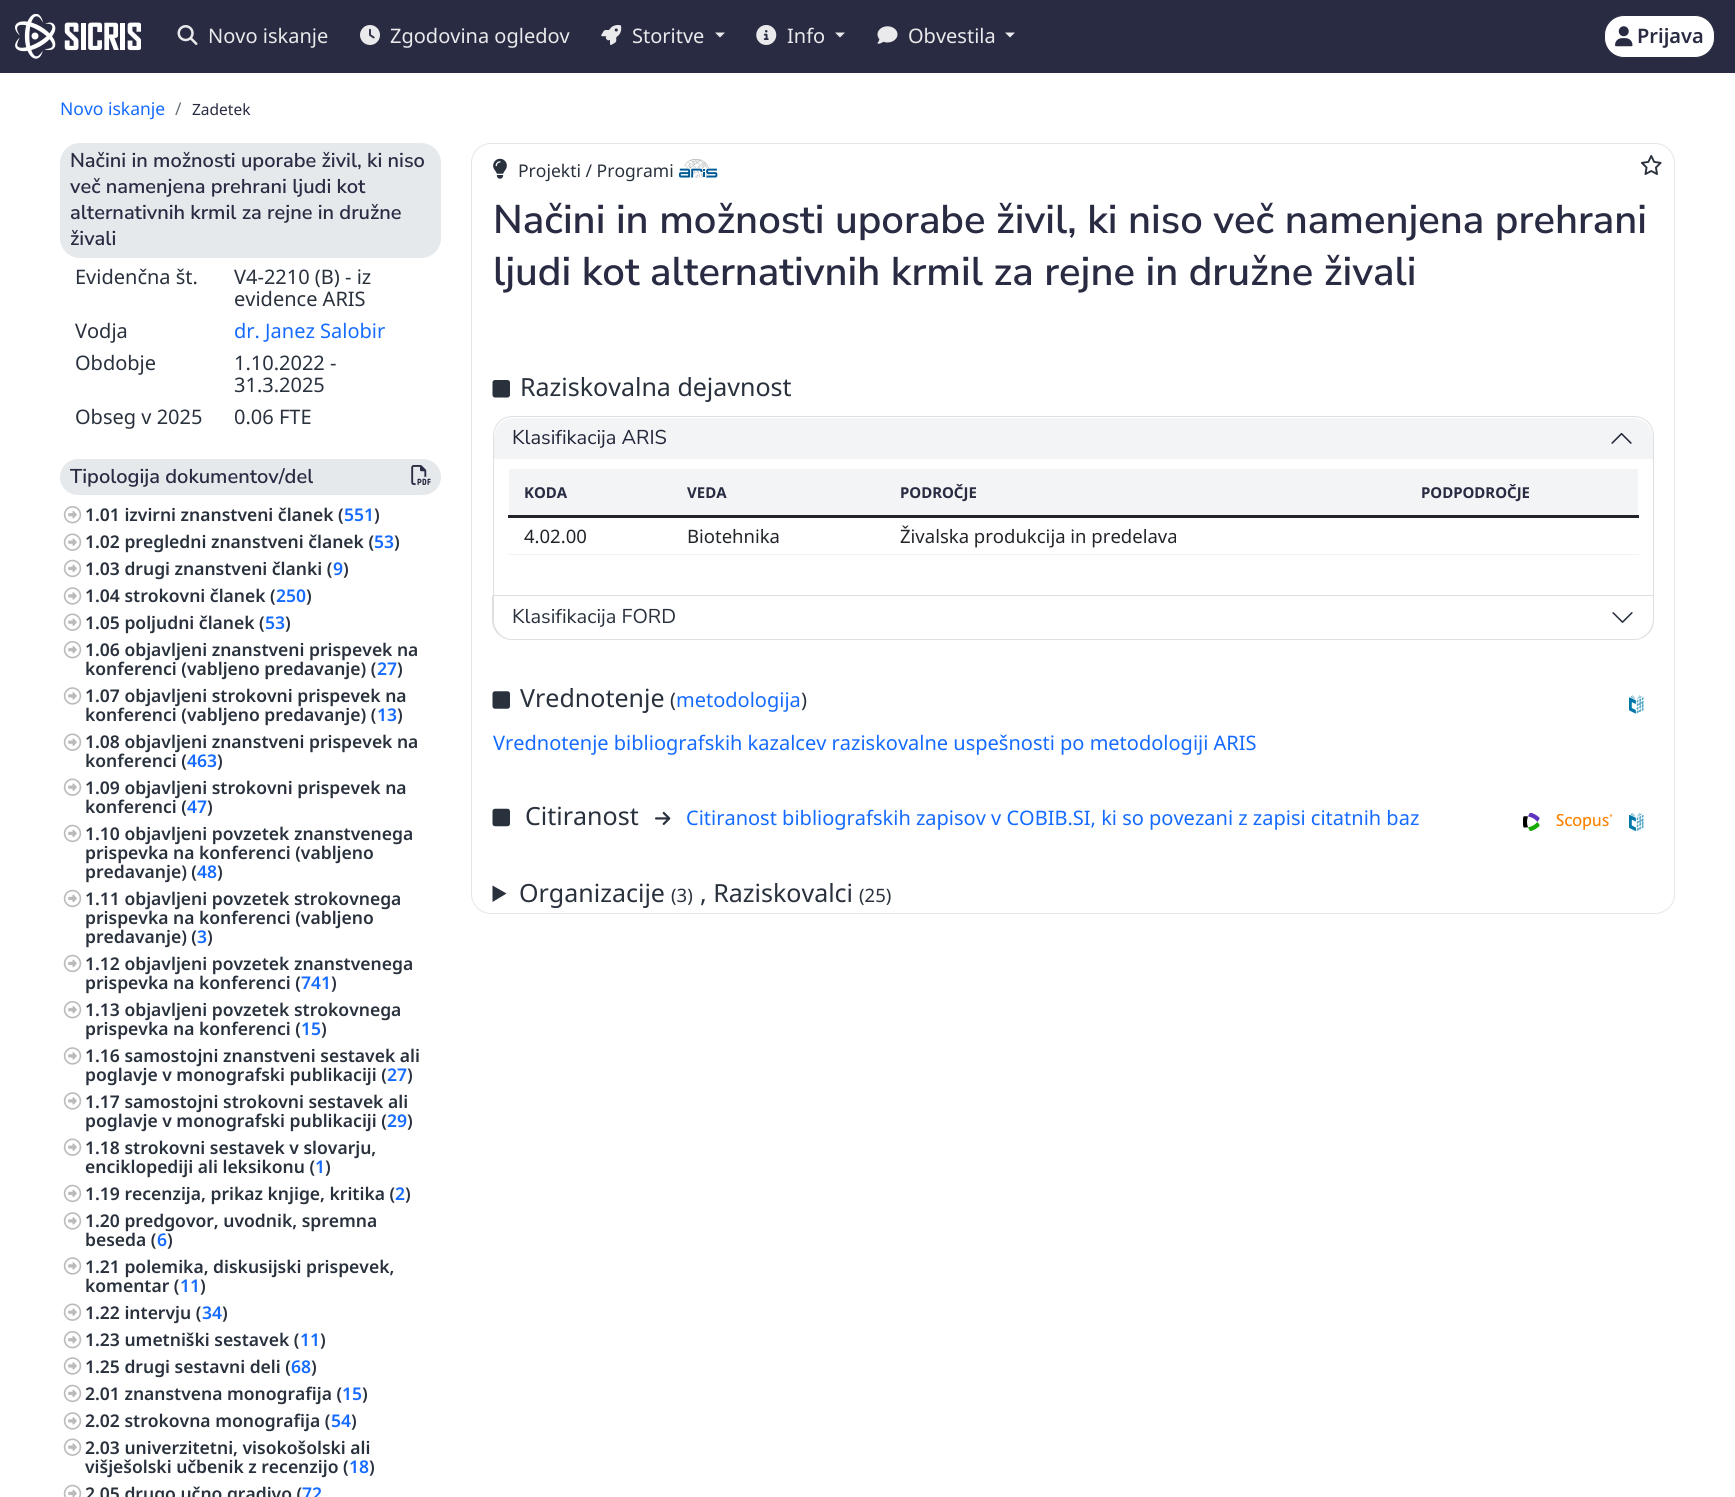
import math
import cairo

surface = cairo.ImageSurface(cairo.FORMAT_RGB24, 1735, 1497)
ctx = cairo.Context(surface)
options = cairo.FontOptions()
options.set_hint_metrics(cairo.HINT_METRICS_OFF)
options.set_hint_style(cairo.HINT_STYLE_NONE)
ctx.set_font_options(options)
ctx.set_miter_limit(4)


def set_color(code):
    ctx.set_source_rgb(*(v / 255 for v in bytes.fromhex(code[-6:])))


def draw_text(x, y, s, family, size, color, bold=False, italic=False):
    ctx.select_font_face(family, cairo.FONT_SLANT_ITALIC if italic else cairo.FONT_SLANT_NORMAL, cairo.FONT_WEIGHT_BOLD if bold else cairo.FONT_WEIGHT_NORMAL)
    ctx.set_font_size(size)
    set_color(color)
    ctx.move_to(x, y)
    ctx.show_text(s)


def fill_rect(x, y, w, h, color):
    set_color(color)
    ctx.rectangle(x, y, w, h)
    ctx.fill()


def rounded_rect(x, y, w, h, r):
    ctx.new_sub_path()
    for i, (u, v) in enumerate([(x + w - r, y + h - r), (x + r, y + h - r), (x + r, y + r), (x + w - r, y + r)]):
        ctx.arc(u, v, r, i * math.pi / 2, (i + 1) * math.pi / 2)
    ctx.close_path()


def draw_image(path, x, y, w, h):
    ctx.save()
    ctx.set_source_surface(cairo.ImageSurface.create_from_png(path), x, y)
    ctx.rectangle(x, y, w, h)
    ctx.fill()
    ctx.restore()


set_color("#ffffff")
ctx.paint()
fill_rect(0, 0, 1735, 73, "#282b42")
draw_image("assets/img1.png", 15, 14, 126, 45)
draw_image("assets/img2.png", 177, 25, 21, 20)
draw_text(208, 43, "Novo iskanje", "Noto Sans", 20, "#eaeaec")
draw_image("assets/img3.png", 360, 25, 20, 20)
draw_text(390, 43, "Zgodovina ogledov", "Noto Sans", 20, "#eaeaec")
draw_image("assets/img4.png", 601, 25, 21, 20)
draw_text(632, 43, "Storitve", "Noto Sans", 20, "#eaeaec")
ctx.new_path()
ctx.move_to(715, 32.5)
ctx.line_to(725, 32.5)
ctx.line_to(720, 37.5)
ctx.close_path()
ctx.fill()
draw_image("assets/img5.png", 756, 25, 21, 20)
draw_text(787, 43, "Info", "Noto Sans", 20, "#eaeaec")
ctx.new_path()
ctx.move_to(835, 32.5)
ctx.line_to(845, 32.5)
ctx.line_to(840, 37.5)
ctx.close_path()
ctx.fill()
draw_image("assets/img6.png", 877, 26, 21, 18)
draw_text(908, 43, "Obvestila", "Noto Sans", 20, "#eaeaec")
ctx.new_path()
ctx.move_to(1005, 32.5)
ctx.line_to(1015, 32.5)
ctx.line_to(1010, 37.5)
ctx.close_path()
ctx.fill()
set_color("#ffffff")
rounded_rect(1604.5, 15.5, 110, 42, 19.5)
ctx.fill_preserve()
set_color("#282b42")
ctx.set_line_width(1)
ctx.stroke()
draw_image("assets/img7.png", 1615, 26, 18, 21)
draw_text(1637, 43, "Prijava", "Noto Sans SemiBold", 20, "#282b42")
draw_text(60, 115, "Novo iskanje", "Noto Sans", 17.5, "#156bff")
draw_text(175, 115, "/", "Noto Sans", 17.5, "#6c757d")
draw_text(192, 115, "Zadetek", "Noto Sans", 15.5, "#282b42")
set_color("#e6e9ec")
rounded_rect(60, 143, 381, 115, 20)
ctx.fill()
draw_text(70, 167, "Načini in možnosti uporabe živil, ki niso", "Nunito Sans SemiBold", 20, "#282b42")
draw_text(70, 193, "več namenjena prehrani ljudi kot", "Nunito Sans SemiBold", 20, "#282b42")
draw_text(70, 219, "alternativnih krmil za rejne in družne", "Nunito Sans SemiBold", 20, "#282b42")
draw_text(70, 245, "živali", "Nunito Sans SemiBold", 20, "#282b42")
draw_text(75, 284, "Evidenčna št.", "Noto Sans", 20, "#29313d")
draw_text(234, 284, "V4-2210 (B) - iz", "Noto Sans", 20, "#29313d")
draw_text(234, 306, "evidence ARIS", "Noto Sans", 20, "#29313d")
draw_text(75, 338, "Vodja", "Noto Sans", 20, "#29313d")
draw_text(234, 338, "dr. Janez Salobir", "Noto Sans", 20, "#156bff")
draw_text(75, 370, "Obdobje", "Noto Sans", 20, "#29313d")
draw_text(234, 370, "1.10.2022 -", "Noto Sans", 20, "#29313d")
draw_text(234, 392, "31.3.2025", "Noto Sans", 20, "#29313d")
draw_text(75, 424, "Obseg v 2025", "Noto Sans", 20, "#29313d")
draw_text(234, 424, "0.06 FTE", "Noto Sans", 20, "#29313d")
set_color("#e6e9ec")
rounded_rect(60, 459, 381, 36, 18)
ctx.fill()
draw_text(70, 483, "Tipologija dokumentov/del", "Nunito Sans SemiBold", 20, "#282b42")
draw_image("assets/img8.png", 411, 465, 20, 20)
draw_image("assets/img9.png", 63, 506, 19, 18)
draw_text(85, 521, "1.01 izvirni znanstveni članek (", "Noto Sans SemiBold", 17.5, "#29313d")
draw_text(344, 521, "551", "Noto Sans SemiBold", 17.5, "#156bff")
draw_text(374, 521, ")", "Noto Sans SemiBold", 17.5, "#29313d")
draw_image("assets/img10.png", 63, 533, 19, 18)
draw_text(85, 548, "1.02 pregledni znanstveni članek (", "Noto Sans SemiBold", 17.5, "#29313d")
draw_text(374, 548, "53", "Noto Sans SemiBold", 17.5, "#156bff")
draw_text(394, 548, ")", "Noto Sans SemiBold", 17.5, "#29313d")
draw_image("assets/img11.png", 63, 559, 19, 19)
draw_text(85, 575, "1.03 drugi znanstveni članki (", "Noto Sans SemiBold", 17.5, "#29313d")
draw_text(333, 575, "9", "Noto Sans SemiBold", 17.5, "#156bff")
draw_text(343, 575, ")", "Noto Sans SemiBold", 17.5, "#29313d")
draw_image("assets/img12.png", 63, 587, 19, 18)
draw_text(85, 602, "1.04 strokovni članek (", "Noto Sans SemiBold", 17.5, "#29313d")
draw_text(276, 602, "250", "Noto Sans SemiBold", 17.5, "#156bff")
draw_text(306, 602, ")", "Noto Sans SemiBold", 17.5, "#29313d")
draw_image("assets/img10.png", 63, 613, 19, 18)
draw_text(85, 629, "1.05 poljudni članek (", "Noto Sans SemiBold", 17.5, "#29313d")
draw_text(265, 629, "53", "Noto Sans SemiBold", 17.5, "#156bff")
draw_text(285, 629, ")", "Noto Sans SemiBold", 17.5, "#29313d")
draw_image("assets/img9.png", 63, 641, 19, 18)
draw_text(85, 656, "1.06 objavljeni znanstveni prispevek na", "Noto Sans SemiBold", 17.5, "#29313d")
draw_text(85, 675, "konferenci (vabljeno predavanje) (", "Noto Sans SemiBold", 17.5, "#29313d")
draw_text(377, 675, "27", "Noto Sans SemiBold", 17.5, "#156bff")
draw_text(397, 675, ")", "Noto Sans SemiBold", 17.5, "#29313d")
draw_image("assets/img12.png", 63, 687, 19, 18)
draw_text(85, 702, "1.07 objavljeni strokovni prispevek na", "Noto Sans SemiBold", 17.5, "#29313d")
draw_text(85, 721, "konferenci (vabljeno predavanje) (", "Noto Sans SemiBold", 17.5, "#29313d")
draw_text(377, 721, "13", "Noto Sans SemiBold", 17.5, "#156bff")
draw_text(397, 721, ")", "Noto Sans SemiBold", 17.5, "#29313d")
draw_image("assets/img10.png", 63, 733, 19, 18)
draw_text(85, 748, "1.08 objavljeni znanstveni prispevek na", "Noto Sans SemiBold", 17.5, "#29313d")
draw_text(85, 767, "konferenci (", "Noto Sans SemiBold", 17.5, "#29313d")
draw_text(187, 767, "463", "Noto Sans SemiBold", 17.5, "#156bff")
draw_text(217, 767, ")", "Noto Sans SemiBold", 17.5, "#29313d")
draw_image("assets/img10.png", 63, 778, 19, 18)
draw_text(85, 794, "1.09 objavljeni strokovni prispevek na", "Noto Sans SemiBold", 17.5, "#29313d")
draw_text(85, 813, "konferenci (", "Noto Sans SemiBold", 17.5, "#29313d")
draw_text(187, 813, "47", "Noto Sans SemiBold", 17.5, "#156bff")
draw_text(207, 813, ")", "Noto Sans SemiBold", 17.5, "#29313d")
draw_image("assets/img11.png", 63, 824, 19, 19)
draw_text(85, 840, "1.10 objavljeni povzetek znanstvenega", "Noto Sans SemiBold", 17.5, "#29313d")
draw_text(85, 859, "prispevka na konferenci (vabljeno", "Noto Sans SemiBold", 17.5, "#29313d")
draw_text(85, 878, "predavanje) (", "Noto Sans SemiBold", 17.5, "#29313d")
draw_text(197, 878, "48", "Noto Sans SemiBold", 17.5, "#156bff")
draw_text(217, 878, ")", "Noto Sans SemiBold", 17.5, "#29313d")
draw_image("assets/img11.png", 63, 889, 19, 19)
draw_text(85, 905, "1.11 objavljeni povzetek strokovnega", "Noto Sans SemiBold", 17.5, "#29313d")
draw_text(85, 924, "prispevka na konferenci (vabljeno", "Noto Sans SemiBold", 17.5, "#29313d")
draw_text(85, 943, "predavanje) (", "Noto Sans SemiBold", 17.5, "#29313d")
draw_text(197, 943, "3", "Noto Sans SemiBold", 17.5, "#156bff")
draw_text(207, 943, ")", "Noto Sans SemiBold", 17.5, "#29313d")
draw_image("assets/img11.png", 63, 954, 19, 19)
draw_text(85, 970, "1.12 objavljeni povzetek znanstvenega", "Noto Sans SemiBold", 17.5, "#29313d")
draw_text(85, 989, "prispevka na konferenci (", "Noto Sans SemiBold", 17.5, "#29313d")
draw_text(301, 989, "741", "Noto Sans SemiBold", 17.5, "#156bff")
draw_text(331, 989, ")", "Noto Sans SemiBold", 17.5, "#29313d")
draw_image("assets/img9.png", 63, 1001, 19, 18)
draw_text(85, 1016, "1.13 objavljeni povzetek strokovnega", "Noto Sans SemiBold", 17.5, "#29313d")
draw_text(85, 1035, "prispevka na konferenci (", "Noto Sans SemiBold", 17.5, "#29313d")
draw_text(301, 1035, "15", "Noto Sans SemiBold", 17.5, "#156bff")
draw_text(321, 1035, ")", "Noto Sans SemiBold", 17.5, "#29313d")
draw_image("assets/img12.png", 63, 1047, 19, 18)
draw_text(85, 1062, "1.16 samostojni znanstveni sestavek ali", "Noto Sans SemiBold", 17.5, "#29313d")
draw_text(85, 1081, "poglavje v monografski publikaciji (", "Noto Sans SemiBold", 17.5, "#29313d")
draw_text(387, 1081, "27", "Noto Sans SemiBold", 17.5, "#156bff")
draw_text(407, 1081, ")", "Noto Sans SemiBold", 17.5, "#29313d")
draw_image("assets/img12.png", 63, 1092, 19, 18)
draw_text(85, 1108, "1.17 samostojni strokovni sestavek ali", "Noto Sans SemiBold", 17.5, "#29313d")
draw_text(85, 1127, "poglavje v monografski publikaciji (", "Noto Sans SemiBold", 17.5, "#29313d")
draw_text(387, 1127, "29", "Noto Sans SemiBold", 17.5, "#156bff")
draw_text(407, 1127, ")", "Noto Sans SemiBold", 17.5, "#29313d")
draw_image("assets/img10.png", 63, 1138, 19, 18)
draw_text(85, 1154, "1.18 strokovni sestavek v slovarju,", "Noto Sans SemiBold", 17.5, "#29313d")
draw_text(85, 1173, "enciklopediji ali leksikonu (", "Noto Sans SemiBold", 17.5, "#29313d")
draw_text(315, 1173, "1", "Noto Sans SemiBold", 17.5, "#156bff")
draw_text(325, 1173, ")", "Noto Sans SemiBold", 17.5, "#29313d")
draw_image("assets/img11.png", 63, 1184, 19, 19)
draw_text(85, 1200, "1.19 recenzija, prikaz knjige, kritika (", "Noto Sans SemiBold", 17.5, "#29313d")
draw_text(395, 1200, "2", "Noto Sans SemiBold", 17.5, "#156bff")
draw_text(405, 1200, ")", "Noto Sans SemiBold", 17.5, "#29313d")
draw_image("assets/img12.png", 63, 1212, 19, 18)
draw_text(85, 1227, "1.20 predgovor, uvodnik, spremna", "Noto Sans SemiBold", 17.5, "#29313d")
draw_text(85, 1246, "beseda (", "Noto Sans SemiBold", 17.5, "#29313d")
draw_text(157, 1246, "6", "Noto Sans SemiBold", 17.5, "#156bff")
draw_text(167, 1246, ")", "Noto Sans SemiBold", 17.5, "#29313d")
draw_image("assets/img12.png", 63, 1257, 19, 18)
draw_text(85, 1273, "1.21 polemika, diskusijski prispevek,", "Noto Sans SemiBold", 17.5, "#29313d")
draw_text(85, 1292, "komentar (", "Noto Sans SemiBold", 17.5, "#29313d")
draw_text(180, 1292, "11", "Noto Sans SemiBold", 17.5, "#156bff")
draw_text(200, 1292, ")", "Noto Sans SemiBold", 17.5, "#29313d")
draw_image("assets/img10.png", 63, 1303, 19, 18)
draw_text(85, 1319, "1.22 intervju (", "Noto Sans SemiBold", 17.5, "#29313d")
draw_text(202, 1319, "34", "Noto Sans SemiBold", 17.5, "#156bff")
draw_text(222, 1319, ")", "Noto Sans SemiBold", 17.5, "#29313d")
draw_image("assets/img9.png", 63, 1331, 19, 18)
draw_text(85, 1346, "1.23 umetniški sestavek (", "Noto Sans SemiBold", 17.5, "#29313d")
draw_text(300, 1346, "11", "Noto Sans SemiBold", 17.5, "#156bff")
draw_text(320, 1346, ")", "Noto Sans SemiBold", 17.5, "#29313d")
draw_image("assets/img12.png", 63, 1357, 19, 18)
draw_text(85, 1373, "1.25 drugi sestavni deli (", "Noto Sans SemiBold", 17.5, "#29313d")
draw_text(291, 1373, "68", "Noto Sans SemiBold", 17.5, "#156bff")
draw_text(311, 1373, ")", "Noto Sans SemiBold", 17.5, "#29313d")
draw_image("assets/img11.png", 63, 1384, 19, 19)
draw_text(85, 1400, "2.01 znanstvena monografija (", "Noto Sans SemiBold", 17.5, "#29313d")
draw_text(342, 1400, "15", "Noto Sans SemiBold", 17.5, "#156bff")
draw_text(362, 1400, ")", "Noto Sans SemiBold", 17.5, "#29313d")
draw_image("assets/img12.png", 63, 1412, 19, 18)
draw_text(85, 1427, "2.02 strokovna monografija (", "Noto Sans SemiBold", 17.5, "#29313d")
draw_text(331, 1427, "54", "Noto Sans SemiBold", 17.5, "#156bff")
draw_text(351, 1427, ")", "Noto Sans SemiBold", 17.5, "#29313d")
draw_image("assets/img10.png", 63, 1438, 19, 18)
draw_text(85, 1454, "2.03 univerzitetni, visokošolski ali", "Noto Sans SemiBold", 17.5, "#29313d")
draw_text(85, 1473, "višješolski učbenik z recenzijo (", "Noto Sans SemiBold", 17.5, "#29313d")
draw_text(349, 1473, "18", "Noto Sans SemiBold", 17.5, "#156bff")
draw_text(369, 1473, ")", "Noto Sans SemiBold", 17.5, "#29313d")
draw_image("assets/img13.png", 63, 1484, 19, 13)
draw_text(85, 1500, "2.05 drugo učno gradivo (", "Noto Sans SemiBold", 17.5, "#29313d")
draw_text(302, 1500, "72", "Noto Sans SemiBold", 17.5, "#156bff")
rounded_rect(471.5, 143.5, 1203, 770, 19.5)
set_color("#e5e6e9")
ctx.stroke()
draw_image("assets/img14.png", 493, 158, 14, 21)
draw_text(518, 177, "Projekti / Programi", "Noto Sans", 17.5, "#29313d")
draw_image("assets/img15.png", 679, 159, 39, 19)
draw_text(493, 233, "Načini in možnosti uporabe živil, ki niso več namenjena prehrani", "Nunito Sans SemiBold", 40, "#282b42")
draw_text(493, 285, "ljudi kot alternativnih krmil za rejne in družne živali", "Nunito Sans SemiBold", 40, "#282b42")
draw_image("assets/img16.png", 492, 380, 18, 18)
draw_text(520, 396, "Raziskovalna dejavnost", "Noto Sans", 25, "#29313d")
ctx.new_path()
ctx.move_to(513, 416.5)
ctx.line_to(1634, 416.5)
ctx.curve_to(1645, 416.5, 1653.5, 425, 1653.5, 436)
ctx.line_to(1653.5, 595.5)
ctx.line_to(493.5, 595.5)
ctx.line_to(493.5, 436)
ctx.curve_to(493.5, 425, 502, 416.5, 513, 416.5)
ctx.close_path()
set_color("#dfdfdf")
ctx.stroke()
set_color("#f3f4f6")
ctx.new_path()
ctx.move_to(514, 418)
ctx.line_to(1633, 418)
ctx.curve_to(1644, 418, 1653, 427, 1653, 438)
ctx.line_to(1653, 459)
ctx.line_to(494, 459)
ctx.line_to(494, 438)
ctx.curve_to(494, 427, 503, 418, 514, 418)
ctx.close_path()
ctx.fill()
draw_text(512, 444, "Klasifikacija ARIS", "Nunito Sans", 20, "#22273a")
draw_image("assets/img17.png", 1611, 433, 21, 11)
fill_rect(509, 469, 1129, 46, "#f3f4f6")
draw_text(524, 498, "KODA", "Noto Sans", 15, "#282b42", bold=True)
draw_text(687, 498, "VEDA", "Noto Sans", 15, "#282b42", bold=True)
draw_text(900, 498, "PODROČJE", "Noto Sans", 15, "#282b42", bold=True)
draw_text(1421, 498, "PODPODROČJE", "Noto Sans", 15, "#282b42", bold=True)
fill_rect(508, 515, 1131, 3, "#212529")
draw_text(524, 543, "4.02.00", "Noto Sans", 18.5, "#212529")
draw_text(687, 543, "Biotehnika", "Noto Sans", 18.5, "#212529")
draw_text(900, 543, "Živalska produkcija in predelava", "Noto Sans", 18.5, "#212529")
fill_rect(509, 554, 1130, 1, "#f2f2f2")
set_color("#dfdfdf")
ctx.set_fill_rule(cairo.FILL_RULE_EVEN_ODD)
ctx.new_path()
ctx.move_to(492, 596)
ctx.line_to(1654, 596)
ctx.line_to(1654, 620)
ctx.curve_to(1654, 631, 1645, 640, 1634, 640)
ctx.line_to(512, 640)
ctx.curve_to(501, 640, 492, 631, 492, 620)
ctx.close_path()
ctx.move_to(494, 596)
ctx.line_to(1652, 596)
ctx.line_to(1652, 620)
ctx.curve_to(1652, 630, 1644, 639, 1634, 639)
ctx.line_to(512, 639)
ctx.curve_to(502, 639, 494, 630, 494, 620)
ctx.close_path()
ctx.fill()
set_color("#ffffff")
ctx.new_path()
ctx.move_to(494, 596)
ctx.line_to(1653, 596)
ctx.line_to(1653, 619)
ctx.curve_to(1653, 630, 1644, 639, 1633, 639)
ctx.line_to(514, 639)
ctx.curve_to(503, 639, 494, 630, 494, 619)
ctx.close_path()
ctx.fill()
draw_text(512, 623, "Klasifikacija FORD", "Nunito Sans", 20, "#29313d")
draw_image("assets/img18.png", 1612, 612, 21, 11)
draw_image("assets/img19.png", 492, 691, 18, 18)
draw_text(520, 707, "Vrednotenje", "Noto Sans", 25, "#29313d")
draw_text(670, 707, "(", "Noto Sans", 20, "#29313d")
draw_text(676, 707, "metodologija", "Noto Sans", 20, "#156bff")
draw_text(801, 707, ")", "Noto Sans", 20, "#29313d")
draw_image("assets/img20.png", 1629, 695, 15, 19)
draw_text(493, 750, "Vrednotenje bibliografskih kazalcev raziskovalne uspešnosti po metodologiji ARIS", "Noto Sans", 20, "#156bff")
draw_image("assets/img21.png", 492, 808, 18, 19)
draw_text(525, 825, "Citiranost", "Noto Sans", 25, "#29313d")
draw_image("assets/img22.png", 655, 811, 16, 14)
draw_text(686, 825, "Citiranost bibliografskih zapisov v COBIB.SI, ki so povezani z zapisi citatnih baz", "Noto Sans", 20, "#156bff")
draw_image("assets/img23.png", 1523, 813, 17, 18)
draw_image("assets/img24.png", 1556, 813, 57, 17)
draw_image("assets/img25.png", 1629, 813, 15, 18)
set_color("#29313d")
ctx.set_fill_rule(cairo.FILL_RULE_WINDING)
ctx.new_path()
ctx.move_to(492.5, 885.5)
ctx.line_to(506.5, 893.5)
ctx.line_to(492.5, 902)
ctx.close_path()
ctx.fill()
draw_text(519, 902, "Organizacije", "Noto Sans", 25, "#29313d")
draw_text(671, 902, "(3)", "Noto Sans", 18.5, "#29313d")
draw_text(700, 902, ", Raziskovalci", "Noto Sans", 25, "#29313d")
draw_text(859, 902, "(25)", "Noto Sans", 18.5, "#29313d")
draw_image("assets/img26.png", 1641, 155, 21, 20)
surface.write_to_png("output.png")
